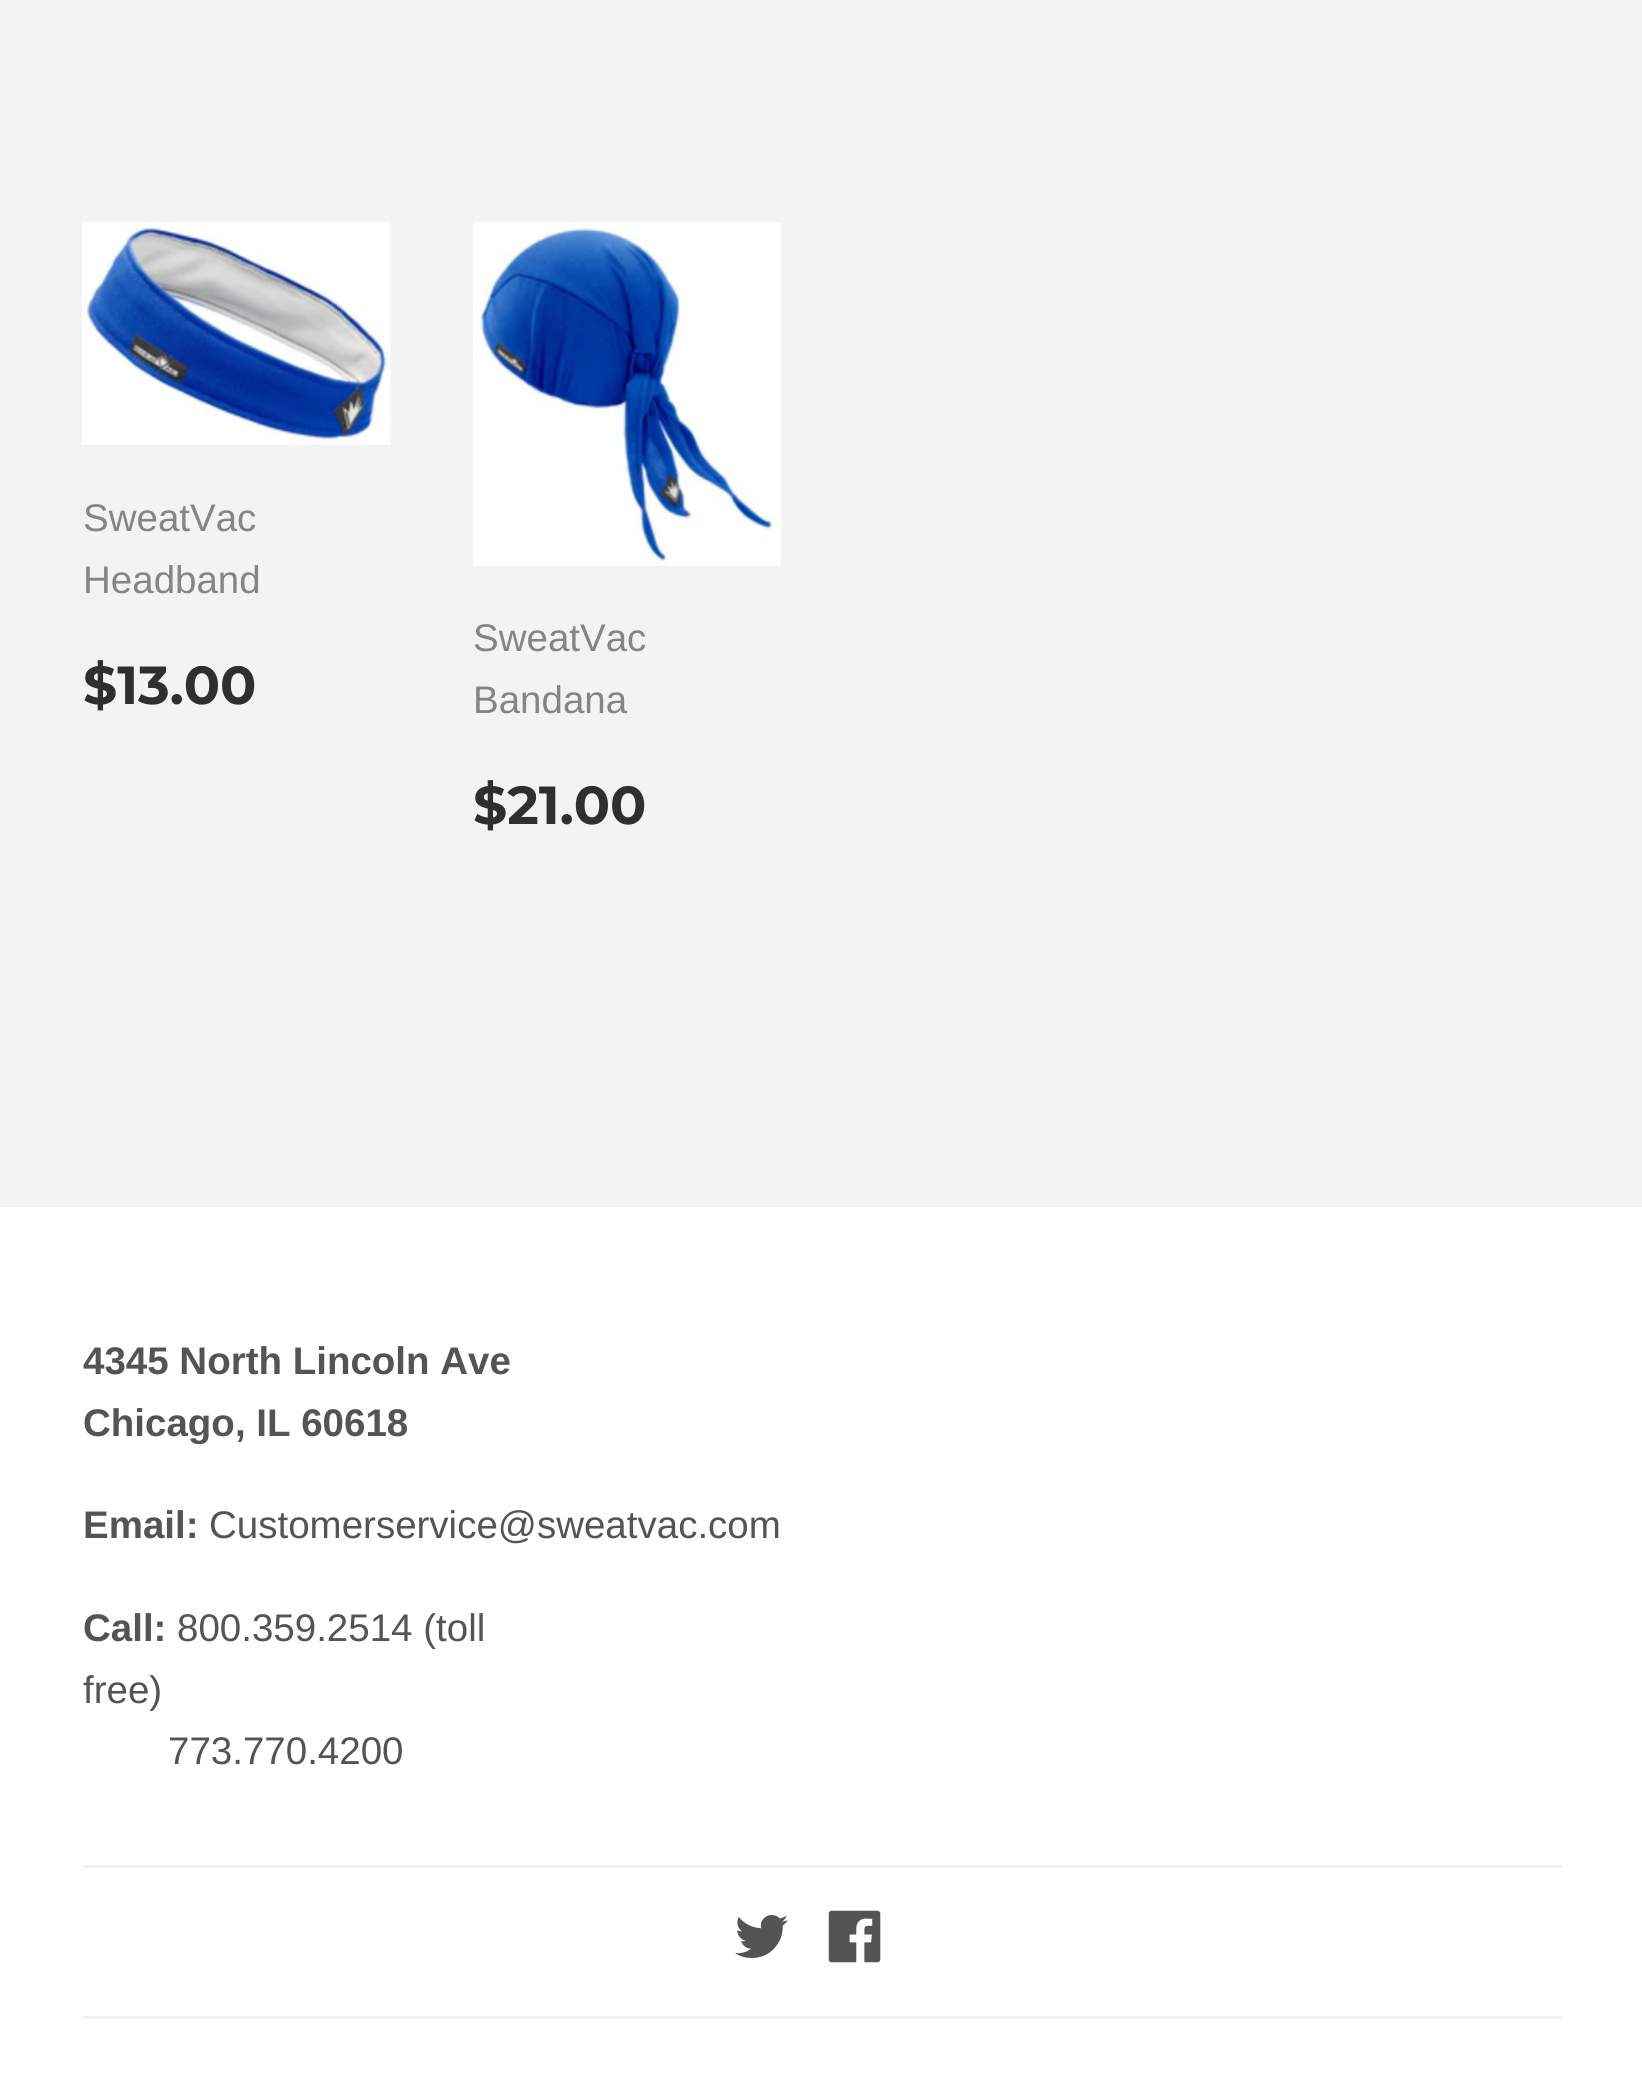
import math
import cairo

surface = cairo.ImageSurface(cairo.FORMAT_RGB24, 1642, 2095)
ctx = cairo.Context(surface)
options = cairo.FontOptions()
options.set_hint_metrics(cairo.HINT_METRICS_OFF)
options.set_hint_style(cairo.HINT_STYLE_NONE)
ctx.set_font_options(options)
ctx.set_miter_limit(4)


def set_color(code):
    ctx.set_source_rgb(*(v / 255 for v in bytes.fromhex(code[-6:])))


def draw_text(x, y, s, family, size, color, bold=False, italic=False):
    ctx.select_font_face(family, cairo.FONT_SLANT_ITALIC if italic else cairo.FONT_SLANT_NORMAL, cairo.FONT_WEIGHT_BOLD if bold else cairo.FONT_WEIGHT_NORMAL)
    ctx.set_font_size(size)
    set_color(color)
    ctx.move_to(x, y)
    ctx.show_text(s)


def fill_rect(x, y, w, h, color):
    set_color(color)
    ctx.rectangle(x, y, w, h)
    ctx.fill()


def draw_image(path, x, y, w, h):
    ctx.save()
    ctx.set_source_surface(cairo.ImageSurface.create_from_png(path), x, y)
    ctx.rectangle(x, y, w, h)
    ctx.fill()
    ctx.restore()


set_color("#f3f3f3")
ctx.paint()
draw_image("assets/img1.png", 82, 222, 309, 223)
draw_text(83, 531, "SweatVac", "Liberation Sans", 38.5, "#858585")
draw_text(83, 593, "Headband", "Liberation Sans", 38.5, "#858585")
draw_text(83, 704, "$13.00", "Montserrat Thin", 53.5, "#2f2f2f")
draw_image("assets/img2.png", 473, 222, 308, 344)
draw_text(473, 651, "SweatVac", "Liberation Sans", 38.5, "#858585")
draw_text(473, 713, "Bandana", "Liberation Sans", 38.5, "#858585")
draw_text(473, 824, "$21.00", "Montserrat Thin", 53.5, "#2f2f2f")
fill_rect(0, 1207, 1642, 888, "#ffffff")
draw_text(83, 1374, "4345 North Lincoln Ave", "Liberation Sans", 38.5, "#545454", bold=True)
draw_text(83, 1436, "Chicago, IL 60618", "Liberation Sans", 38.5, "#545454", bold=True)
draw_text(83, 1538, "Email:", "Liberation Sans", 38.5, "#545454", bold=True)
draw_text(209, 1538, "Customerservice@sweatvac.com", "Liberation Sans", 38.5, "#545454")
draw_text(83, 1641, "Call:", "Liberation Sans", 38.5, "#545454", bold=True)
draw_text(177, 1641, "800.359.2514 (toll", "Liberation Sans", 38.5, "#545454")
draw_text(83, 1703, "free)", "Liberation Sans", 38.5, "#545454")
draw_text(168, 1764, "773.770.4200", "Liberation Sans", 38.5, "#545454")
fill_rect(83, 1865, 1479, 3, "#f2f2f2")
draw_image("assets/img3.png", 735, 1915, 53, 43)
draw_image("assets/img4.png", 828, 1910, 53, 53)
fill_rect(83, 2016, 1479, 3, "#f2f2f2")
surface.write_to_png("output.png")
